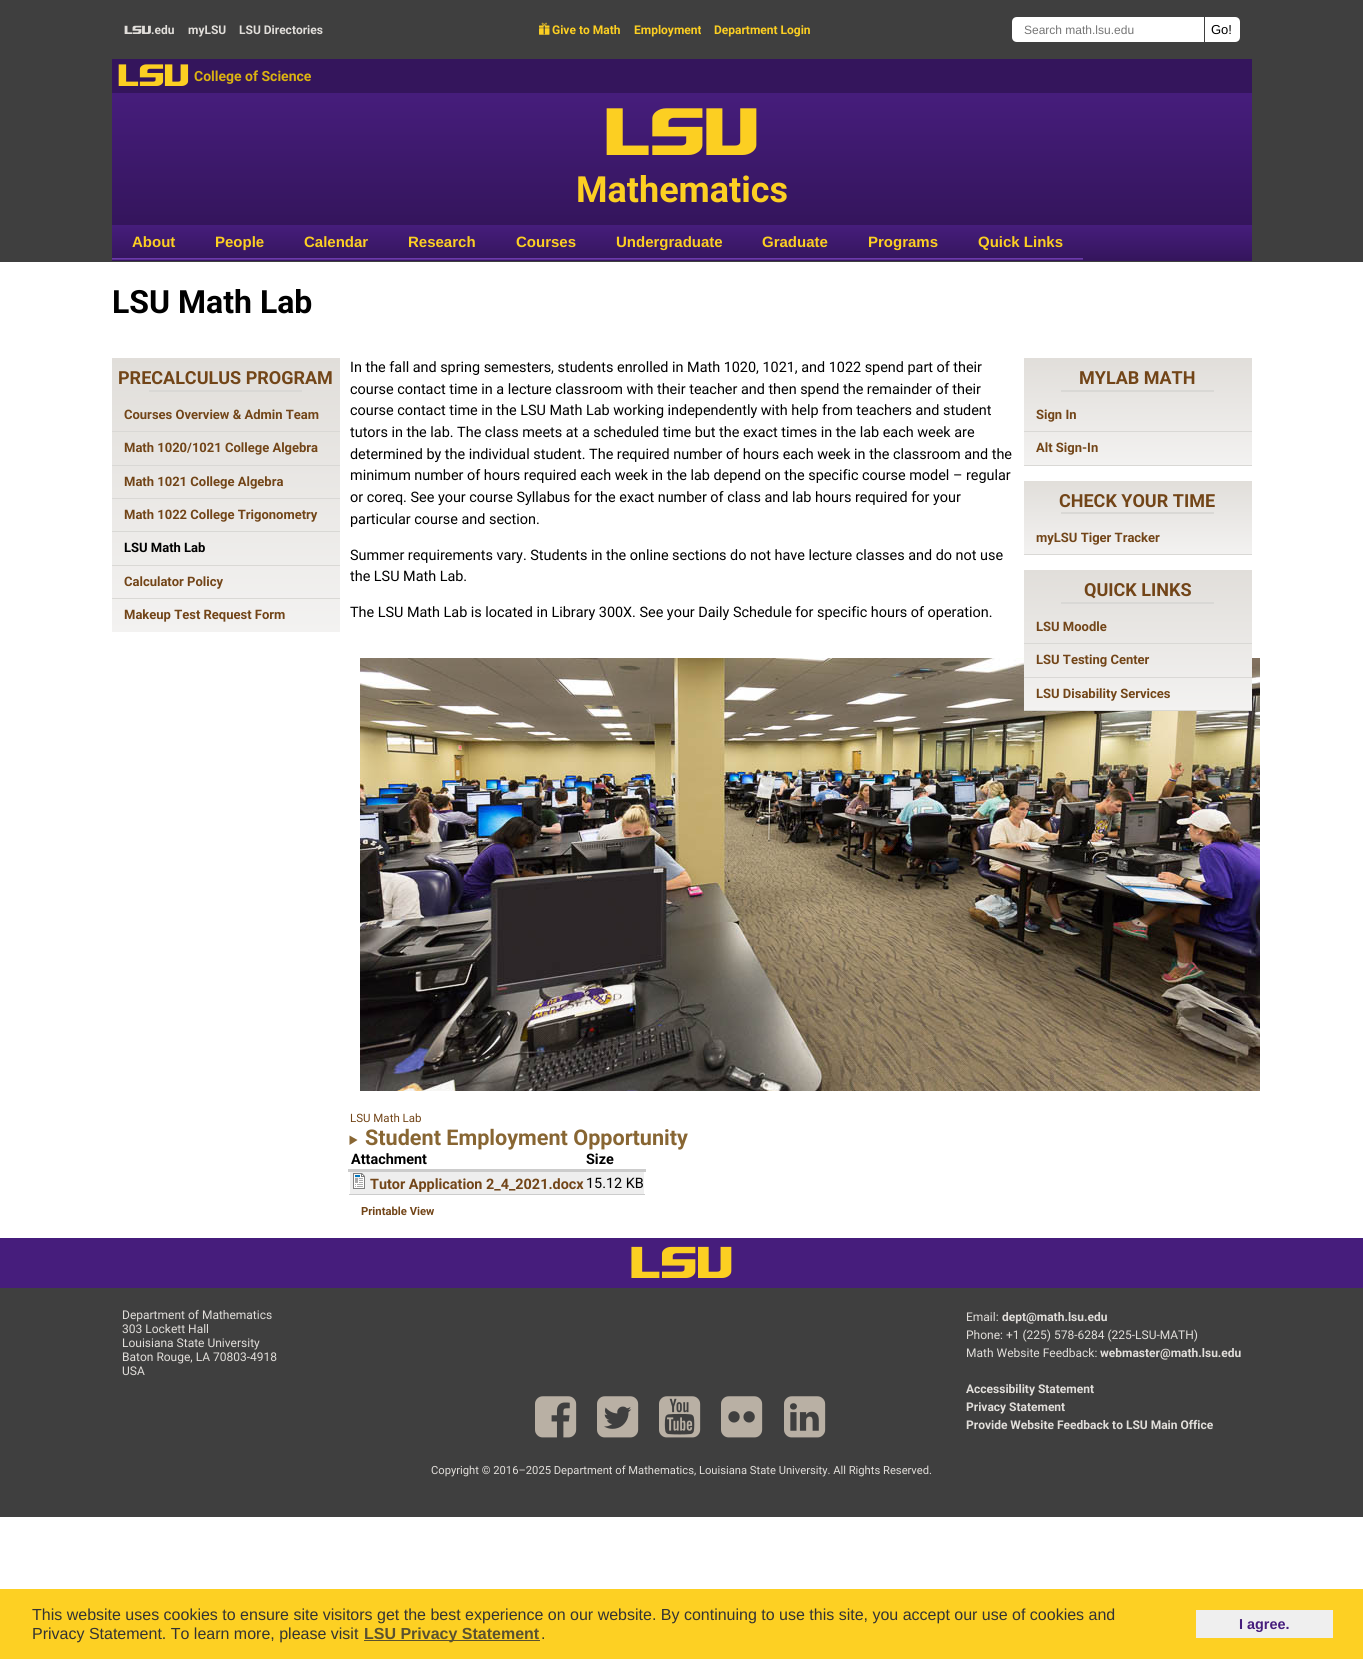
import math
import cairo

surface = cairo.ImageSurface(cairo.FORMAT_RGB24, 1363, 1659)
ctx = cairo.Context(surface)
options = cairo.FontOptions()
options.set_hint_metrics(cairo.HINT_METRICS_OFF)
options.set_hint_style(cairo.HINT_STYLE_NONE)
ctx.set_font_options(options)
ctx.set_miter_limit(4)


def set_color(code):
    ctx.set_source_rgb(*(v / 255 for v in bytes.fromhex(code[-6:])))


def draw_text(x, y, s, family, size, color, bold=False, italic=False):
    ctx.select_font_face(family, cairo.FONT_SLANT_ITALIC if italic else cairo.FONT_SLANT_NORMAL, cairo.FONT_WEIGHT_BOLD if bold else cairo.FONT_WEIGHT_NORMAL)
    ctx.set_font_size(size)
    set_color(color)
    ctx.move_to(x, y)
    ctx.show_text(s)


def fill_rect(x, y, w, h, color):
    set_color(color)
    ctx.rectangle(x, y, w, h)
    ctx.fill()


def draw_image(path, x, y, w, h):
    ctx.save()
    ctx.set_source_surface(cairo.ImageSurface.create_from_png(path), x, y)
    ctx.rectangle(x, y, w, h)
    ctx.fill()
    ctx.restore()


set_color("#ffffff")
ctx.paint()
fill_rect(0, 0, 1363, 262, "#3f3f3f")
draw_text(124, 34, "LSU", "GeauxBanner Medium", 9.5, "#e1deda")
draw_text(151, 34, ".edu", "Roboto", 12, "#e1deda", bold=True)
draw_text(188, 34, "myLSU", "Roboto", 12, "#e1deda", bold=True)
draw_text(239, 34, "LSU Directories", "Roboto", 12, "#e1deda", bold=True)
draw_image("assets/img1.png", 539, 22, 11, 13)
draw_text(552, 34, "Give to Math", "Roboto", 12, "#fccf22", bold=True)
draw_text(634, 34, "Employment", "Roboto", 12, "#fccf22", bold=True)
draw_text(714, 34, "Department Login", "Roboto", 12, "#fccf22", bold=True)
set_color("#ffffff")
ctx.new_path()
ctx.move_to(1017, 17)
ctx.line_to(1204, 17)
ctx.line_to(1204, 42)
ctx.line_to(1017, 42)
ctx.curve_to(1014, 42, 1012, 40, 1012, 37)
ctx.line_to(1012, 22)
ctx.curve_to(1012, 19, 1014, 17, 1017, 17)
ctx.close_path()
ctx.fill()
draw_text(1024, 34, "Search math.lsu.edu", "Liberation Sans", 12, "#757575")
set_color("#ffffff")
ctx.new_path()
ctx.move_to(1205, 17)
ctx.line_to(1235, 17)
ctx.curve_to(1238, 17, 1240, 19, 1240, 22)
ctx.line_to(1240, 37)
ctx.curve_to(1240, 40, 1238, 42, 1235, 42)
ctx.line_to(1205, 42)
ctx.close_path()
ctx.fill()
draw_text(1211, 34, "Go!", "Liberation Sans", 13, "#000000")
fill_rect(112, 59, 1140, 34, "#34155c")
draw_text(117, 86, "LSU", "GeauxBanner Medium", 25, "#fccf22")
draw_text(194, 81, "College of Science", "Roboto", 14, "#dab111", bold=True)
gradient = cairo.LinearGradient(682, 93, 682, 225)
gradient.add_color_stop_rgba(0, 0.275, 0.114, 0.486, 1)
gradient.add_color_stop_rgba(1, 0.204, 0.082, 0.361, 1)
ctx.set_source(gradient)
ctx.rectangle(112, 93, 1140, 132)
ctx.fill()
draw_text(603, 155, "LSU", "GeauxBanner Medium", 54, "#fccf22")
draw_text(576, 202, "Mathematics", "Roboto", 36, "#fccf22", bold=True)
gradient = cairo.LinearGradient(682, 225, 682, 261)
gradient.add_color_stop_rgba(0, 0.275, 0.114, 0.486, 1)
gradient.add_color_stop_rgba(1, 0.204, 0.082, 0.361, 1)
ctx.set_source(gradient)
ctx.rectangle(112, 225, 1140, 36)
ctx.fill()
draw_image("assets/img2.png", 112, 258, 83, 2)
draw_text(132, 247, "About", "Liberation Sans", 15, "#fccf22", bold=True)
draw_image("assets/img3.png", 195, 258, 89, 2)
draw_text(215, 247, "People", "Liberation Sans", 15, "#fccf22", bold=True)
draw_image("assets/img4.png", 284, 258, 104, 2)
draw_text(304, 247, "Calendar", "Liberation Sans", 15, "#fccf22", bold=True)
draw_image("assets/img5.png", 388, 258, 108, 2)
draw_text(408, 247, "Research", "Liberation Sans", 15, "#fccf22", bold=True)
draw_image("assets/img6.png", 496, 258, 100, 2)
draw_text(516, 247, "Courses", "Liberation Sans", 15, "#fccf22", bold=True)
draw_image("assets/img7.png", 596, 258, 146, 2)
draw_text(616, 247, "Undergraduate", "Liberation Sans", 15, "#fccf22", bold=True)
draw_image("assets/img8.png", 742, 258, 106, 2)
draw_text(762, 247, "Graduate", "Liberation Sans", 15, "#fccf22", bold=True)
draw_image("assets/img9.png", 848, 258, 110, 2)
draw_text(868, 247, "Programs", "Liberation Sans", 15, "#fccf22", bold=True)
draw_image("assets/img10.png", 958, 258, 125, 2)
draw_text(978, 247, "Quick Links", "Liberation Sans", 15, "#fccf22", bold=True)
draw_text(112, 313, "LSU Math Lab", "Roboto", 32, "#000000", bold=True)
gradient = cairo.LinearGradient(226, 358, 226, 632)
gradient.add_color_stop_rgba(0, 0.882, 0.871, 0.855, 1)
gradient.add_color_stop_rgba(1, 0.953, 0.949, 0.945, 1)
ctx.set_source(gradient)
ctx.rectangle(112, 358, 228, 274)
ctx.fill()
draw_text(118, 384, "PRECALCULUS PROGRAM", "Roboto", 18, "#724518", bold=True)
fill_rect(149, 390, 153, 2, "#d9d8d5")
fill_rect(112, 431, 228, 1, "#d9d8d5")
draw_text(124, 419, "Courses Overview & Admin Team", "Roboto", 13, "#724518", bold=True)
fill_rect(112, 465, 228, 1, "#d9d8d5")
draw_text(124, 452, "Math 1020/1021 College Algebra", "Roboto", 13, "#724518", bold=True)
fill_rect(112, 498, 228, 1, "#d9d8d5")
draw_text(124, 486, "Math 1021 College Algebra", "Roboto", 13, "#724518", bold=True)
fill_rect(112, 531, 228, 1, "#d9d8d5")
draw_text(124, 519, "Math 1022 College Trigonometry", "Roboto", 13, "#724518", bold=True)
fill_rect(112, 565, 228, 1, "#d9d8d5")
draw_text(124, 552, "LSU Math Lab", "Roboto", 13, "#000000", bold=True)
fill_rect(112, 598, 228, 1, "#d9d8d5")
draw_text(124, 586, "Calculator Policy", "Roboto", 13, "#724518", bold=True)
draw_text(124, 619, "Makeup Test Request Form", "Roboto", 13, "#724518", bold=True)
draw_text(350, 372, "In the fall and spring semesters, students enrolled in Math 1020, 1021, and 1022 spend part of their", "Roboto", 14.4, "#000000")
draw_text(350, 394, "course contact time in a lecture classroom with their teacher and then spend the remainder of their", "Roboto", 14.4, "#000000")
draw_text(350, 415, "course contact time in the LSU Math Lab working independently with help from teachers and student", "Roboto", 14.4, "#000000")
draw_text(350, 437, "tutors in the lab. The class meets at a scheduled time but the exact times in the lab each week are", "Roboto", 14.4, "#000000")
draw_text(350, 459, "determined by the individual student. The required number of hours each week in the classroom and the", "Roboto", 14.4, "#000000")
draw_text(350, 480, "minimum number of hours required each week in the lab depend on the specific course model – regular", "Roboto", 14.4, "#000000")
draw_text(350, 502, "or coreq. See your course Syllabus for the exact number of class and lab hours required for your", "Roboto", 14.4, "#000000")
draw_text(350, 524, "particular course and section.", "Roboto", 14.4, "#000000")
draw_text(350, 560, "Summer requirements vary. Students in the online sections do not have lecture classes and do not use", "Roboto", 14.4, "#000000")
draw_text(350, 581, "the LSU Math Lab.", "Roboto", 14.4, "#000000")
draw_text(350, 617, "The LSU Math Lab is located in Library 300X. See your Daily Schedule for specific hours of operation.", "Roboto", 14.4, "#000000")
draw_image("assets/img11.png", 360, 658, 900, 433)
draw_text(350, 1122, "LSU Math Lab", "Roboto", 11.5, "#724518")
set_color("#886633")
ctx.new_path()
ctx.move_to(349.5, 1135.5)
ctx.line_to(357.5, 1140)
ctx.line_to(349.5, 1145)
ctx.close_path()
ctx.fill()
draw_text(365, 1145, "Student Employment Opportunity", "Roboto", 21.6, "#886633", bold=True)
draw_text(351, 1164, "Attachment", "Roboto", 14.4, "#000000", bold=True)
fill_rect(348, 1169, 298, 3, "#cccccc")
draw_text(586, 1164, "Size", "Roboto", 14.4, "#000000", bold=True)
fill_rect(350, 1172, 294, 22, "#eeeeee")
fill_rect(349, 1194, 296, 1, "#cccccc")
draw_image("assets/img12.png", 353, 1173, 12, 16)
draw_text(370, 1189, "Tutor Application 2_4_2021.docx", "Roboto", 14.4, "#724518", bold=True)
draw_text(586, 1188, "15.12 KB", "Roboto", 14.4, "#000000")
draw_text(361, 1215, "Printable View", "Roboto", 11.25, "#724518", bold=True)
gradient = cairo.LinearGradient(1138, 358, 1138, 466)
gradient.add_color_stop_rgba(0, 0.882, 0.871, 0.855, 1)
gradient.add_color_stop_rgba(1, 0.953, 0.949, 0.945, 1)
ctx.set_source(gradient)
ctx.rectangle(1024, 358, 228, 107)
ctx.fill()
draw_text(1079, 384, "MYLAB MATH", "Roboto", 18, "#724518", bold=True)
fill_rect(1061, 390, 153, 2, "#d9d8d5")
fill_rect(1024, 431, 228, 1, "#d9d8d5")
draw_text(1036, 419, "Sign In", "Roboto", 13, "#724518", bold=True)
fill_rect(1024, 465, 228, 1, "#d9d8d5")
draw_text(1036, 452, "Alt Sign-In", "Roboto", 13, "#724518", bold=True)
gradient = cairo.LinearGradient(1138, 481, 1138, 555)
gradient.add_color_stop_rgba(0, 0.882, 0.871, 0.855, 1)
gradient.add_color_stop_rgba(1, 0.953, 0.949, 0.945, 1)
ctx.set_source(gradient)
ctx.rectangle(1024, 481, 228, 73)
ctx.fill()
draw_text(1059, 507, "CHECK YOUR TIME", "Roboto", 18, "#724518", bold=True)
fill_rect(1061, 512, 153, 2, "#d9d8d5")
fill_rect(1024, 554, 228, 1, "#d9d8d5")
draw_text(1036, 542, "myLSU Tiger Tracker", "Roboto", 13, "#724518", bold=True)
gradient = cairo.LinearGradient(1138, 570, 1138, 711)
gradient.add_color_stop_rgba(0, 0.882, 0.871, 0.855, 1)
gradient.add_color_stop_rgba(1, 0.953, 0.949, 0.945, 1)
ctx.set_source(gradient)
ctx.rectangle(1024, 570, 228, 140)
ctx.fill()
draw_text(1084, 596, "QUICK LINKS", "Roboto", 18, "#724518", bold=True)
fill_rect(1061, 602, 153, 2, "#d9d8d5")
fill_rect(1024, 643, 228, 1, "#d9d8d5")
draw_text(1036, 631, "LSU Moodle", "Roboto", 13, "#724518", bold=True)
fill_rect(1024, 677, 228, 1, "#d9d8d5")
draw_text(1036, 664, "LSU Testing Center", "Roboto", 13, "#724518", bold=True)
fill_rect(1024, 710, 228, 1, "#d9d8d5")
draw_text(1036, 698, "LSU Disability Services", "Roboto", 13, "#724518", bold=True)
fill_rect(0, 1238, 1363, 50, "#461d7c")
draw_text(629, 1278, "LSU", "GeauxBanner Medium", 36, "#fccf22")
fill_rect(0, 1288, 1363, 229, "#3f3f3f")
draw_text(122, 1319, "Department of Mathematics", "Roboto", 12, "#e1deda")
draw_text(122, 1333, "303 Lockett Hall", "Roboto", 12, "#e1deda")
draw_text(122, 1347, "Louisiana State University", "Roboto", 12, "#e1deda")
draw_text(122, 1361, "Baton Rouge, LA 70803-4918", "Roboto", 12, "#e1deda")
draw_text(122, 1375, "USA", "Roboto", 12, "#e1deda")
draw_image("assets/img13.png", 535, 1396, 42, 42)
draw_image("assets/img14.png", 597, 1396, 42, 42)
draw_image("assets/img15.png", 659, 1396, 42, 42)
draw_image("assets/img16.png", 721, 1396, 42, 42)
draw_image("assets/img17.png", 784, 1396, 42, 42)
draw_text(966, 1321, "Email:", "Roboto", 12, "#e1deda")
draw_text(1002, 1321, "dept@math.lsu.edu", "Roboto", 12, "#e1deda", bold=True)
draw_text(966, 1339, "Phone: +1 (225) 578-6284 (225-LSU-MATH)", "Roboto", 12, "#e1deda")
draw_text(966, 1357, "Math Website Feedback:", "Roboto", 12, "#e1deda")
draw_text(1100, 1357, "webmaster@math.lsu.edu", "Roboto", 12, "#e1deda", bold=True)
draw_text(966, 1393, "Accessibility Statement", "Roboto", 12, "#e1deda", bold=True)
draw_text(966, 1411, "Privacy Statement", "Roboto", 12, "#e1deda", bold=True)
draw_text(966, 1429, "Provide Website Feedback to LSU Main Office", "Roboto", 12, "#e1deda", bold=True)
draw_text(431, 1474, "Copyright © 2016–2025 Department of Mathematics, Louisiana State University. All Rights Reserved.", "Roboto", 11.2, "#e1deda")
fill_rect(0, 1589, 1363, 70, "#fdd023")
draw_text(32, 1620, "This website uses cookies to ensure site visitors get the best experience on our website. By continuing to use this site, you accept our use of cookies and", "Liberation Sans", 16, "#333333")
draw_text(32, 1639, "Privacy Statement. To learn more, please visit", "Liberation Sans", 16, "#333333")
fill_rect(364, 1640, 176, 1, "#5b5230")
draw_text(364, 1639, "LSU Privacy Statement", "Liberation Sans", 16, "#5b5230", bold=True)
draw_text(541, 1639, ".", "Liberation Sans", 16, "#333333")
fill_rect(1196, 1610, 137, 28, "#efefef")
draw_text(1239, 1629, "I agree.", "Liberation Sans", 14.4, "#461d7c", bold=True)
surface.write_to_png("output.png")
